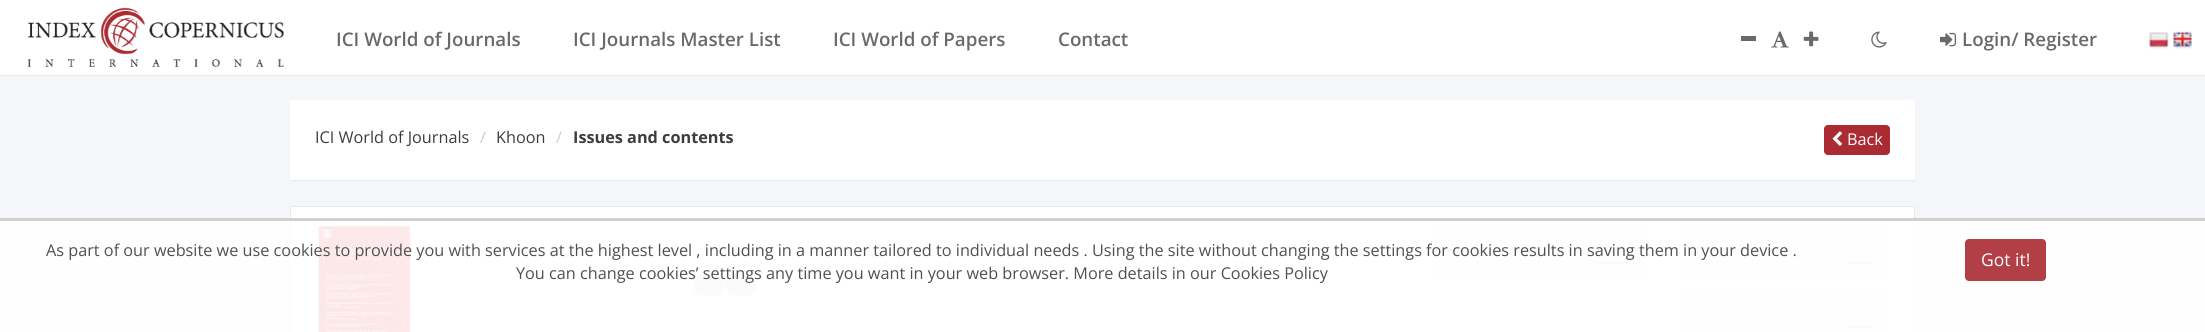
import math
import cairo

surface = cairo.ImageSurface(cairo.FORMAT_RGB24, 2205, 332)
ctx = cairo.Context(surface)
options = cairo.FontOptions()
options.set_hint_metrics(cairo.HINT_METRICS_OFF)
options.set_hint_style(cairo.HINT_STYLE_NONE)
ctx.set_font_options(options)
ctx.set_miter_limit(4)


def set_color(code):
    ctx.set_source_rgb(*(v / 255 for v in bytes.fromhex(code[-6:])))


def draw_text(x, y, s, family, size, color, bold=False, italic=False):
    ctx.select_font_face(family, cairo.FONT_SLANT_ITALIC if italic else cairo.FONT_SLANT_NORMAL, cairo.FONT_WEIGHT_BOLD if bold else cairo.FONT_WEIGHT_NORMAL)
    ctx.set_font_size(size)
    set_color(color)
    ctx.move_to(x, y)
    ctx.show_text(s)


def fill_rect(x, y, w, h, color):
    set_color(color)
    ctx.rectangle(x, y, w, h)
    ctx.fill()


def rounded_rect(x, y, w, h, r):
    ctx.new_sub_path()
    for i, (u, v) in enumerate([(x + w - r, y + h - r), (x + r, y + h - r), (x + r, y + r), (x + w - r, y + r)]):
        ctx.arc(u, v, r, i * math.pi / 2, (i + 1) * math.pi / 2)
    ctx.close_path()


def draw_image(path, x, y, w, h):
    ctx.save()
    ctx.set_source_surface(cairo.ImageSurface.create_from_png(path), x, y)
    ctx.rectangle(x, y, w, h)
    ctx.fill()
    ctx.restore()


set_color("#f4f6fa")
ctx.paint()
fill_rect(0, 0, 2205, 75, "#ffffff")
fill_rect(0, 75, 2205, 1, "#e7eaec")
draw_image("assets/img1.png", 27, 7, 257, 60)
draw_text(336, 46, "ICI World of Journals", "Open Sans SemiBold", 18.75, "#676a6c")
draw_text(573, 46, "ICI Journals Master List", "Open Sans SemiBold", 18.75, "#676a6c")
draw_text(833, 46, "ICI World of Papers", "Open Sans SemiBold", 18.75, "#676a6c")
draw_text(1058, 46, "Contact", "Open Sans SemiBold", 18.75, "#676a6c")
fill_rect(1741, 36, 15, 5, "#676a6c")
draw_image("assets/img2.png", 1771, 31, 18, 17)
draw_image("assets/img3.png", 1803, 31, 16, 16)
draw_image("assets/img4.png", 1871, 31, 16, 17)
draw_image("assets/img5.png", 1940, 32, 17, 15)
draw_text(1962, 46, "Login/ Register", "Open Sans SemiBold", 18.75, "#676a6c")
draw_image("assets/img6.png", 2149, 32, 20, 17)
draw_image("assets/img7.png", 2173, 31, 19, 18)
fill_rect(290, 100, 1625, 80, "#ffffff")
fill_rect(290, 180, 1625, 1, "#e7eaec")
draw_text(315, 143, "ICI World of Journals", "Open Sans", 16.25, "#3d3d3d")
draw_text(480, 143, "/", "Open Sans", 16.25, "#cccccc")
draw_text(496, 143, "Khoon", "Open Sans", 16.25, "#3d3d3d")
draw_text(556, 143, "/", "Open Sans", 16.25, "#cccccc")
draw_text(573, 143, "Issues and contents", "Open Sans", 16.25, "#3d3d3d", bold=True)
set_color("#aa2b31")
rounded_rect(1824.5, 125.5, 65, 29, 3.5)
ctx.fill_preserve()
ctx.set_line_width(1)
ctx.stroke()
draw_image("assets/img8.png", 1832, 131, 10, 15)
draw_text(1847, 145, "Back", "Open Sans", 16.25, "#ffffff")
ctx.rectangle(290.5, 206.5, 1624, 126)
ctx.fill_preserve()
set_color("#e7eaec")
ctx.stroke()
draw_image("assets/img9.png", 318, 226, 92, 106)
set_color("#d1dade")
rounded_rect(693, 274, 32, 22, 11)
ctx.fill()
rounded_rect(725, 274, 31, 22, 11)
ctx.fill()
fill_rect(1434, 226, 209, 50, "#f3f3f4")
ctx.new_path()
ctx.move_to(1597.5, 263)
ctx.line_to(1629, 263)
set_color("#777777")
ctx.set_line_width(1.2)
ctx.set_dash([1.25, 1.25])
ctx.stroke()
fill_rect(1680, 226, 209, 50, "#f3f3f4")
ctx.new_path()
ctx.move_to(1850, 263)
ctx.line_to(1875, 263)
set_color("#777777")
ctx.stroke()
fill_rect(1680, 289, 209, 43, "#f3f3f4")
ctx.new_path()
ctx.move_to(1850, 327)
ctx.line_to(1875, 327)
set_color("#777777")
ctx.stroke()
ctx.set_source_rgba(1, 1, 1, 0.9)
ctx.rectangle(0, 221, 2205, 111)
ctx.fill()
fill_rect(0, 218, 2205, 3, "#d1d1d1")
draw_text(46, 256, "As part of our website we use cookies to provide you with services at the highest level , including in a manner tailored to individual needs . Using the site without changing the settings for cookies results in saving them in your device .", "Open Sans", 16.25, "#505050")
draw_text(516, 279, "You can change cookies’ settings any time you want in your web browser. More details in our Cookies Policy", "Open Sans", 16.25, "#505050")
set_color("#b13f45")
rounded_rect(1965, 239, 81, 42, 4)
ctx.fill()
draw_text(1981, 266, "Got it!", "Open Sans", 17.5, "#ffffff")
surface.write_to_png("output.png")
